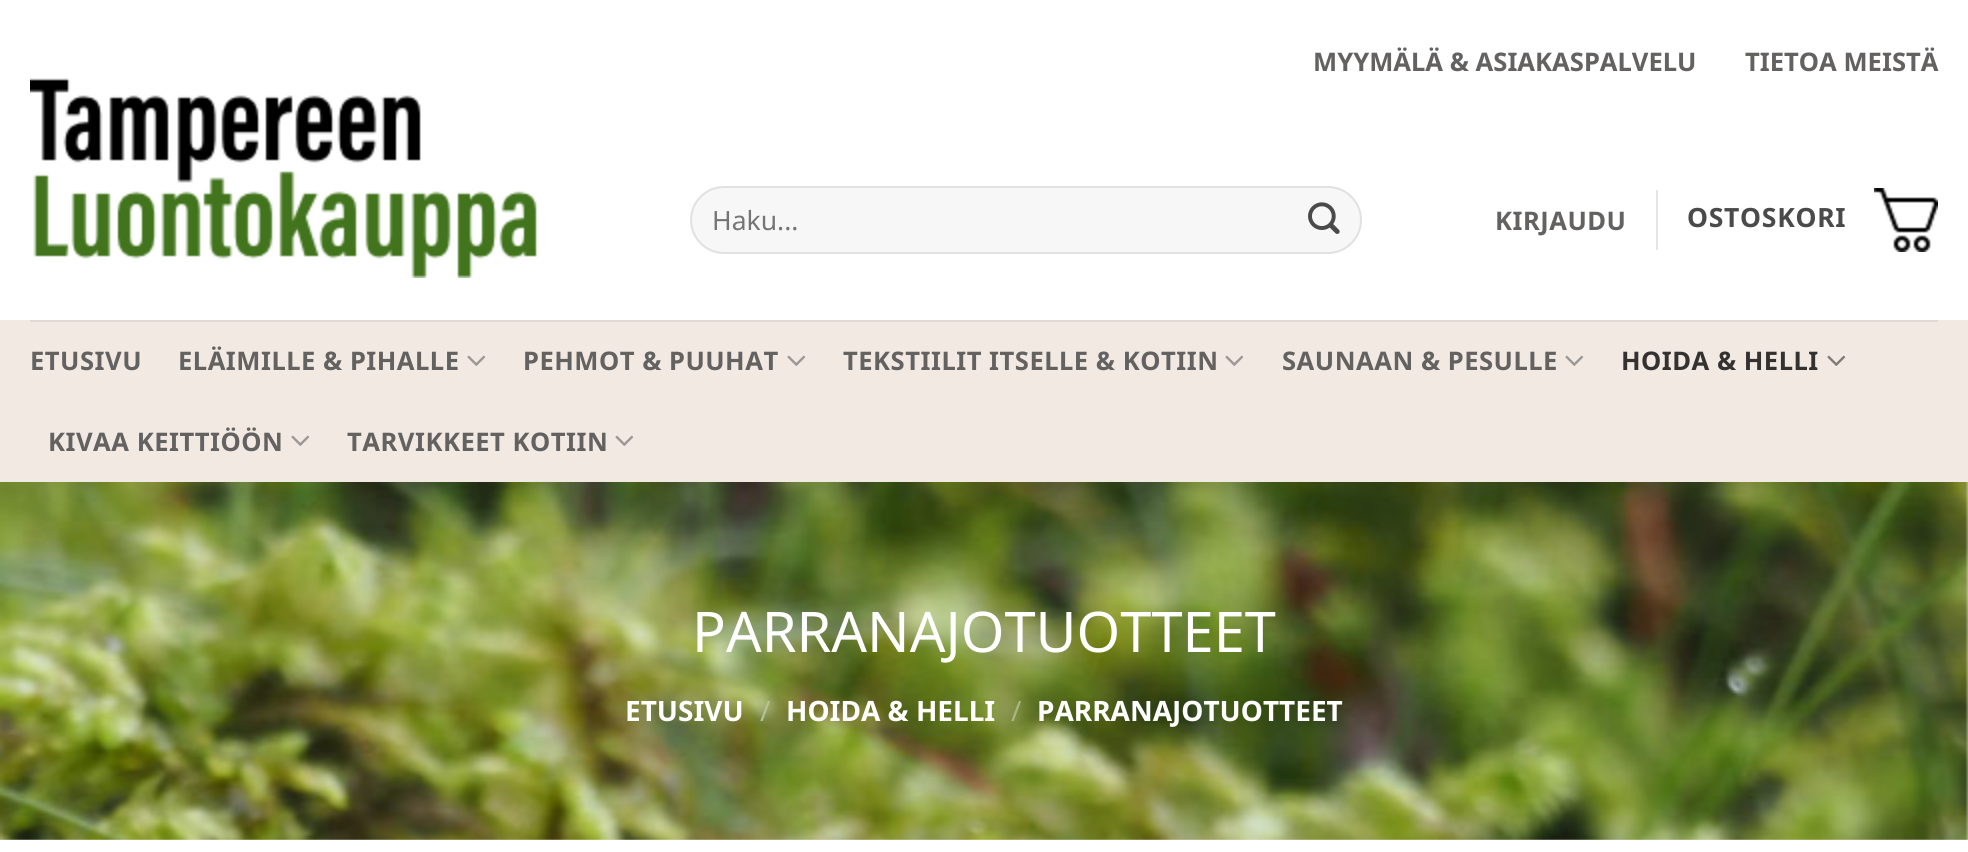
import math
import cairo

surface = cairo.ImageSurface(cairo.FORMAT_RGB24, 1968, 852)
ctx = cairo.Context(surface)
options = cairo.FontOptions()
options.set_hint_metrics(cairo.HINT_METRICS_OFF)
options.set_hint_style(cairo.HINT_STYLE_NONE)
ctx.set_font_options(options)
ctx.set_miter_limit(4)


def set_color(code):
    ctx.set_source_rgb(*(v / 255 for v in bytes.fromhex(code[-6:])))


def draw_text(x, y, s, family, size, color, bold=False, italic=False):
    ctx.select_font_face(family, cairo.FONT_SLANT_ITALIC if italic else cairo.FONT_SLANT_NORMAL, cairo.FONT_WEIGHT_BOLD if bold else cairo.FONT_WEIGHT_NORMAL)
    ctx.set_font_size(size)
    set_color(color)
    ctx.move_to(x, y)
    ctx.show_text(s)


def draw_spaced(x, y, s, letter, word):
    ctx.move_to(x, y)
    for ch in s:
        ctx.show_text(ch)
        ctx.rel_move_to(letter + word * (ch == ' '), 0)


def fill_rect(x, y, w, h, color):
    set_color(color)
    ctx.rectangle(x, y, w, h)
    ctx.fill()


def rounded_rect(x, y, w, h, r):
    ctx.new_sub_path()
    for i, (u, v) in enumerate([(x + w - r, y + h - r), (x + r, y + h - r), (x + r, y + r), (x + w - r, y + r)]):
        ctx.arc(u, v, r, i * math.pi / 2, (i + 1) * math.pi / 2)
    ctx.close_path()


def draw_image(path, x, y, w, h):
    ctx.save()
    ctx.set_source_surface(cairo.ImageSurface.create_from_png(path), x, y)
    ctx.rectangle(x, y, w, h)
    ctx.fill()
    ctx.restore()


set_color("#ffffff")
ctx.paint()
draw_text(1313, 71, "MYYMÄLÄ & ASIAKASPALVELU", "Noto Sans", 25.6, "#636261", bold=True)
draw_text(1745, 71, "TIETOA MEISTÄ", "Noto Sans", 25.6, "#636261", bold=True)
draw_image("assets/img1.png", 30, 78, 508, 200)
set_color("#f7f7f7")
rounded_rect(690, 186, 672, 68, 34)
ctx.fill()
rounded_rect(691, 187, 670, 66, 33)
ctx.set_source_rgba(0, 0, 0, 0.09)
ctx.stroke()
draw_text(712, 230, "Haku...", "Noto Sans", 26.5, "#757575")
draw_image("assets/img2.png", 1308, 202, 32, 32)
ctx.select_font_face("Noto Sans", cairo.FONT_SLANT_NORMAL, cairo.FONT_WEIGHT_BOLD)
ctx.set_font_size(25.6)
set_color("#636261")
draw_spaced(1495, 230, "KIRJAUDU", 0.5, 0)
fill_rect(1656, 190, 2, 60, "#e6e6e6")
ctx.set_font_size(26.5)
set_color("#4a4a4a")
draw_spaced(1687, 227, "OSTOSKORI", 0.75, 0)
draw_image("assets/img3.png", 1874, 188, 64, 64)
fill_rect(0, 320, 1968, 520, "#f2e9e3")
fill_rect(30, 320, 1908, 2, "#e1d9d4")
ctx.set_font_size(25.6)
set_color("#636261")
draw_spaced(30, 370, "ETUSIVU", 0.5, 0)
draw_spaced(178, 370, "ELÄIMILLE & PIHALLE", 0.5, 0)
draw_image("assets/img4.png", 467, 355, 19, 11)
draw_spaced(523, 370, "PEHMOT & PUUHAT", 0.5, 0)
draw_image("assets/img4.png", 787, 355, 19, 11)
draw_spaced(843, 370, "TEKSTIILIT ITSELLE & KOTIIN", 0.5, 0)
draw_image("assets/img4.png", 1225, 355, 19, 11)
draw_spaced(1282, 370, "SAUNAAN & PESULLE", 0.5, 0)
draw_image("assets/img4.png", 1565, 355, 19, 11)
set_color("#343231")
draw_spaced(1621, 370, "HOIDA & HELLI", 0.5, 0)
draw_image("assets/img5.png", 1827, 355, 19, 11)
set_color("#636261")
draw_spaced(48, 451, "KIVAA KEITTIÖÖN", 0.5, 0)
draw_image("assets/img4.png", 291, 435, 19, 11)
draw_spaced(347, 451, "TARVIKKEET KOTIIN", 0.5, 0)
draw_image("assets/img4.png", 615, 435, 19, 11)
draw_image("assets/img6.png", 0, 482, 1968, 358)
draw_text(692, 652, "PARRANAJOTUOTTEET", "Noto Sans", 56, "#ffffff")
draw_text(625, 721, "ETUSIVU", "Noto Sans", 28, "#ffffff", bold=True)
draw_text(760, 721, "/", "Noto Sans", 28, "#b8c196")
draw_text(786, 721, "HOIDA & HELLI", "Noto Sans", 28, "#ffffff", bold=True)
draw_text(1011, 721, "/", "Noto Sans", 28, "#abb583")
draw_text(1037, 721, "PARRANAJOTUOTTEET", "Noto Sans", 28, "#ffffff", bold=True)
surface.write_to_png("output.png")
